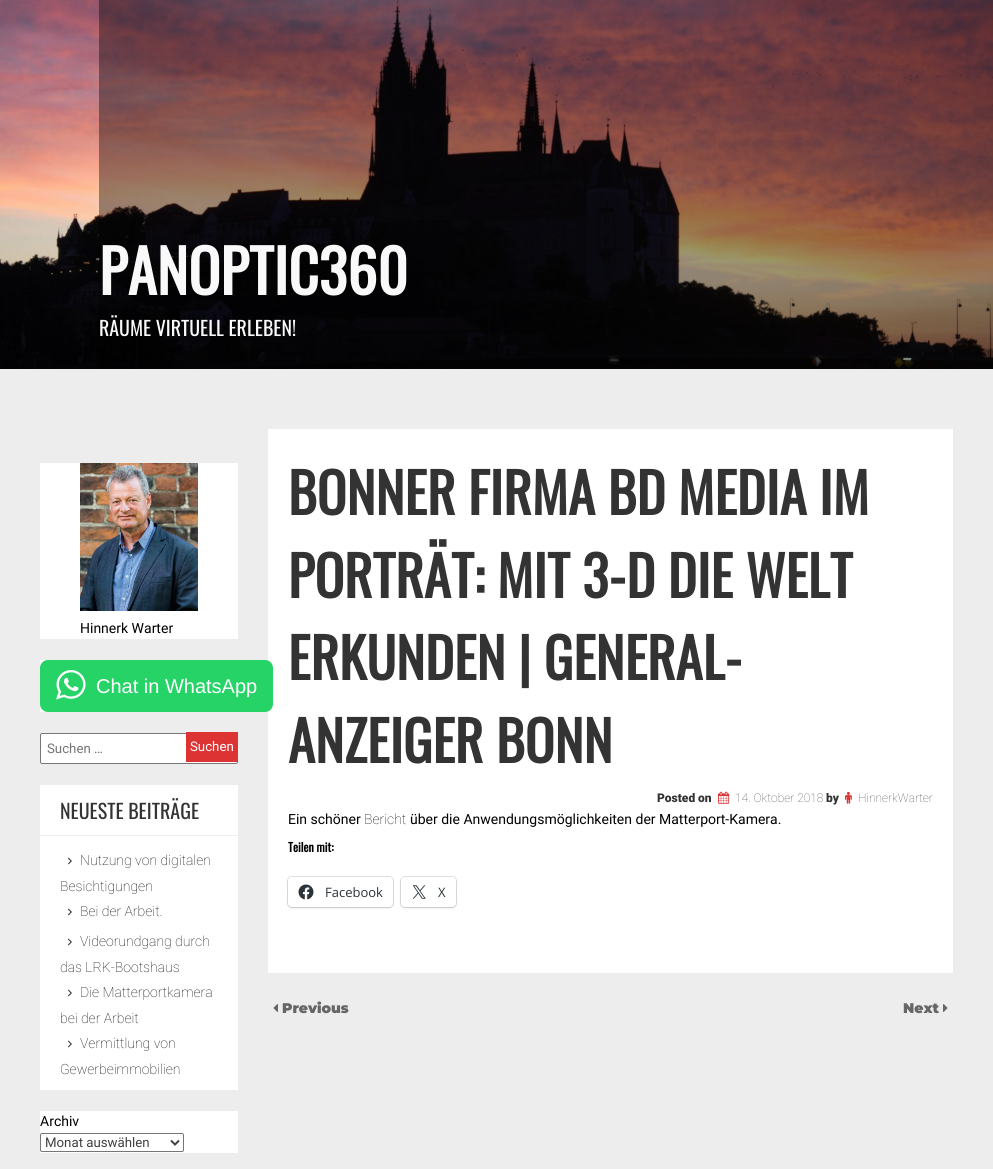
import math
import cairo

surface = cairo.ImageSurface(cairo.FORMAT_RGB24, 993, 1169)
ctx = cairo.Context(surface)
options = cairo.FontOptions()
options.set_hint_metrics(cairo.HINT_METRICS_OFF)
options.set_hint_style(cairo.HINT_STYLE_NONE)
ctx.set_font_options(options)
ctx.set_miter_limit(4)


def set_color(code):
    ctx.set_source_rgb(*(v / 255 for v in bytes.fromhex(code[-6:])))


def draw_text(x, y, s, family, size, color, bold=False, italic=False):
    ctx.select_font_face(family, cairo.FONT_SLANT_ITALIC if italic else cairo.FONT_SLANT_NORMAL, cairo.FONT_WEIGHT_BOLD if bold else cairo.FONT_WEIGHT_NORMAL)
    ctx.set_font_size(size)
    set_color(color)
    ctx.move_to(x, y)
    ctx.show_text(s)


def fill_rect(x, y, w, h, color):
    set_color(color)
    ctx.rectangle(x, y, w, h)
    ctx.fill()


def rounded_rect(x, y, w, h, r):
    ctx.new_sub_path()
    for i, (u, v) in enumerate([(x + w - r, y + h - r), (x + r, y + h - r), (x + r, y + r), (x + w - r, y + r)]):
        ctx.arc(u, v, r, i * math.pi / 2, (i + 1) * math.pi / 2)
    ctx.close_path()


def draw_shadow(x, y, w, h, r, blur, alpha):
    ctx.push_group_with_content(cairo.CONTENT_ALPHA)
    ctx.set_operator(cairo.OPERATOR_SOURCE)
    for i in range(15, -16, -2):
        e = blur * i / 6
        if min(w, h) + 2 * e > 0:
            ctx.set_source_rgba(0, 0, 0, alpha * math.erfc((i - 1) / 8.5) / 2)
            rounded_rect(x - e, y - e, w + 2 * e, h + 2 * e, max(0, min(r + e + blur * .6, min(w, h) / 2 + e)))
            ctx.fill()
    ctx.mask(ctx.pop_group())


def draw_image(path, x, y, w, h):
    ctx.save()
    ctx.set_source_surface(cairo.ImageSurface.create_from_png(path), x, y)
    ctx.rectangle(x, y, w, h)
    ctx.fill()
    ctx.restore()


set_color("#ededed")
ctx.paint()
draw_image("assets/img1.png", 0, 0, 993, 369)
draw_text(99, 295, "PANOPTIC360", "Oswald", 59.5, "#f9f9f9", bold=True)
draw_text(99, 336, "RÄUME VIRTUELL ERLEBEN!", "Oswald", 19.9, "#f9f9f9")
fill_rect(40, 463, 198, 176, "#ffffff")
draw_image("assets/img2.png", 80, 463, 118, 148)
draw_text(80, 633, "Hinnerk Warter", "Roboto", 14, "#000000")
fill_rect(40, 660, 8, 52, "#ffffff")
fill_rect(268, 429, 685, 544, "#ffffff")
set_color("#25d366")
rounded_rect(40, 660, 233, 52, 8)
ctx.fill()
draw_image("assets/img3.png", 56, 670, 30, 30)
draw_text(96, 693, "Chat in WhatsApp", "Liberation Sans", 20, "#ffffff")
fill_rect(40, 733, 198, 31, "#ffffff")
rounded_rect(40.5, 733.5, 197, 30, 1.5)
set_color("#767676")
ctx.set_line_width(1)
ctx.stroke()
draw_text(47, 753, "Suchen …", "Roboto", 13.25, "#757575")
fill_rect(186, 732, 52, 30, "#dd3333")
draw_text(190, 751, "Suchen", "Roboto", 13.25, "#ffffff")
fill_rect(40, 785, 198, 305, "#ffffff")
fill_rect(40, 835, 198, 1, "#eeeeee")
draw_text(60, 819, "NEUESTE BEITRÄGE", "Oswald", 20, "#333333")
draw_image("assets/img4.png", 68, 857, 4, 8)
draw_text(80, 865, "Nutzung von digitalen", "Roboto Thin", 14, "#0c0c0c")
draw_text(60, 891, "Besichtigungen", "Roboto Thin", 14, "#0c0c0c")
draw_image("assets/img4.png", 68, 908, 4, 8)
draw_text(80, 916, "Bei der Arbeit.", "Roboto Thin", 14, "#0c0c0c")
draw_image("assets/img4.png", 68, 938, 4, 8)
draw_text(80, 946, "Videorundgang durch", "Roboto Thin", 14, "#0c0c0c")
draw_text(60, 972, "das LRK-Bootshaus", "Roboto Thin", 14, "#0c0c0c")
draw_image("assets/img4.png", 68, 989, 4, 8)
draw_text(80, 997, "Die Matterportkamera", "Roboto Thin", 14, "#0c0c0c")
draw_text(60, 1023, "bei der Arbeit", "Roboto Thin", 14, "#0c0c0c")
draw_image("assets/img4.png", 68, 1040, 4, 8)
draw_text(80, 1048, "Vermittlung von", "Roboto Thin", 14, "#0c0c0c")
draw_text(60, 1074, "Gewerbeimmobilien", "Roboto Thin", 14, "#0c0c0c")
fill_rect(40, 1111, 198, 42, "#ffffff")
draw_text(40, 1126, "Archiv", "Roboto", 14, "#000000")
rounded_rect(40.5, 1133.5, 143, 18, 1.5)
set_color("#767676")
ctx.stroke()
ctx.new_path()
ctx.move_to(171, 1140.5)
ctx.line_to(175, 1144.5)
ctx.line_to(179, 1140.5)
set_color("#404040")
ctx.set_line_width(2)
ctx.stroke()
draw_text(45, 1147, "Monat auswählen", "Roboto", 13.25, "#404040")
draw_text(288, 515, "BONNER FIRMA BD MEDIA IM", "Oswald", 55, "#333333", bold=True)
draw_text(288, 598, "PORTRÄT: MIT 3-D DIE WELT", "Oswald", 55, "#333333", bold=True)
draw_text(288, 680, "ERKUNDEN | GENERAL-", "Oswald", 55, "#333333", bold=True)
draw_text(288, 763, "ANZEIGER BONN", "Oswald", 55, "#333333", bold=True)
draw_text(657, 802, "Posted on", "Roboto Black", 12, "#333333")
draw_image("assets/img5.png", 718, 791, 12, 13)
draw_text(735, 802, "14. Oktober 2018", "Roboto Thin", 12, "#555555")
draw_text(826, 802, "by", "Roboto Black", 12, "#333333")
draw_image("assets/img6.png", 845, 791, 7, 13)
draw_text(858, 802, "HinnerkWarter", "Roboto Thin", 12, "#555555")
draw_text(288, 824, "Ein schöner", "Roboto", 14, "#000000")
draw_text(364, 824, "Bericht", "Roboto Thin", 14, "#0c0c0c")
draw_text(410, 824, "über die Anwendungsmöglichkeiten der Matterport-Kamera.", "Roboto", 14, "#000000")
draw_text(288, 852, "Teilen mit:", "Oswald", 12, "#000000", bold=True)
rounded_rect(287.5, 876.5, 106, 31, 4.5)
set_color("#e0e0e0")
ctx.set_line_width(1)
ctx.stroke()
set_color("#000000")
draw_shadow(288, 878, 105, 30, 4, 1, 0.12)
set_color("#ffffff")
rounded_rect(288, 877, 105, 30, 4)
ctx.fill()
draw_image("assets/img7.png", 298, 884, 16, 16)
draw_text(325, 897, "Facebook", "Open Sans", 13, "#2c3338")
rounded_rect(400.5, 876.5, 56, 31, 4.5)
set_color("#e0e0e0")
ctx.stroke()
set_color("#000000")
draw_shadow(401, 878, 55, 30, 4, 1, 0.12)
set_color("#ffffff")
rounded_rect(401, 877, 55, 30, 4)
ctx.fill()
draw_image("assets/img8.png", 412, 885, 14, 14)
draw_text(438, 897, "X", "Open Sans", 13, "#2c3338")
draw_image("assets/img9.png", 273, 1004, 5, 8)
draw_text(282, 1013, "Previous", "Montserrat Black", 14, "#666666")
draw_text(903, 1013, "Next", "Montserrat Black", 14, "#666666")
draw_image("assets/img10.png", 943, 1004, 5, 8)
surface.write_to_png("output.png")
